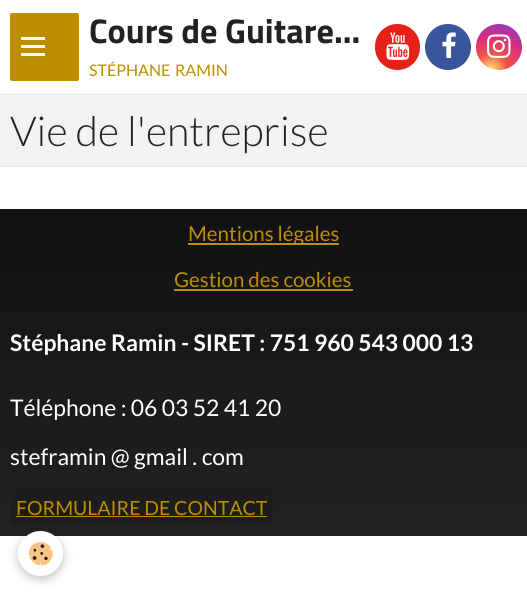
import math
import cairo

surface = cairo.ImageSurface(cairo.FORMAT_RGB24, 527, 594)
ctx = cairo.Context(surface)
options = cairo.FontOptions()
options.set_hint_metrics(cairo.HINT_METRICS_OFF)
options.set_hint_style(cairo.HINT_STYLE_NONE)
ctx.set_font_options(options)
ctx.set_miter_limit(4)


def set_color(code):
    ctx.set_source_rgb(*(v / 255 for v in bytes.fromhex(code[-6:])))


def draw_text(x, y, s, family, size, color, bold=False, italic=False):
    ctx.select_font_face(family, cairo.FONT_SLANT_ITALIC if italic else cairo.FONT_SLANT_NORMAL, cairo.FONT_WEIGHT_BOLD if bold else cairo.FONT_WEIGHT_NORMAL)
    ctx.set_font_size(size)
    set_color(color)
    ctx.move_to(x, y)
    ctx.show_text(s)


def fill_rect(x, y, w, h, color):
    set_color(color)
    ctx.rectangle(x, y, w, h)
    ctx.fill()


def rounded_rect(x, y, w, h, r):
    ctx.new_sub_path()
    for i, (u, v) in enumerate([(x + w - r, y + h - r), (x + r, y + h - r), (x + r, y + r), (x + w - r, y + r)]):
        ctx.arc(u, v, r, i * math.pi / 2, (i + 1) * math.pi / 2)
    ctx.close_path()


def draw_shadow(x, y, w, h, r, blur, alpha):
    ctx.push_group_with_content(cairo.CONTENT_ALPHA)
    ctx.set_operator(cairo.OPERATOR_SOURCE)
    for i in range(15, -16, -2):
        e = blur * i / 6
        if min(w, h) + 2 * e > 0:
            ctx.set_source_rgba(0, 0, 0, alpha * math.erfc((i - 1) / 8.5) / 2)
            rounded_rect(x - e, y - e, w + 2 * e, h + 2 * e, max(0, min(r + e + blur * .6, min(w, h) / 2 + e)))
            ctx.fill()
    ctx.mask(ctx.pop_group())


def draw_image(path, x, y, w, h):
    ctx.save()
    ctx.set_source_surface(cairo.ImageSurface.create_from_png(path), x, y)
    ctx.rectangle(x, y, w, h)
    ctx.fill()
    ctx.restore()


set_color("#ffffff")
ctx.paint()
fill_rect(0, 94, 527, 1, "#e6e6e6")
set_color("#be8d00")
rounded_rect(10, 13, 69, 68, 2)
ctx.fill()
fill_rect(21, 45, 24, 3, "#ffffff")
fill_rect(21, 37, 24, 3, "#ffffff")
fill_rect(21, 53, 24, 3, "#ffffff")
draw_text(89, 43, "Cours de Guitare…", "Titillium Web", 34.25, "#222222", bold=True)
draw_text(89, 76, "STÉPHANE", "Lato", 16, "#be8d00")
draw_text(175, 76, "RAMIN", "Lato", 16, "#be8d00")
set_color("#e62117")
rounded_rect(375, 24, 45, 46, 22.5)
ctx.fill()
draw_image("assets/img1.png", 386, 32, 24, 28)
set_color("#385699")
ctx.arc(448, 47, 23, 0, 2 * math.pi)
ctx.fill()
draw_image("assets/img2.png", 442, 32, 14, 26)
gradient = cairo.RadialGradient(491, 70, 0, 491, 70, 55)
gradient.add_color_stop_rgba(0.04, 0.996, 0.827, 0.451, 1)
gradient.add_color_stop_rgba(0.3, 0.945, 0.322, 0.271, 1)
gradient.add_color_stop_rgba(0.62, 0.851, 0.18, 0.498, 1)
gradient.add_color_stop_rgba(0.85, 0.608, 0.212, 0.718, 1)
gradient.add_color_stop_rgba(1, 0.318, 0.369, 0.812, 1)
ctx.set_source(gradient)
ctx.arc(499, 47, 23, 0, 2 * math.pi)
ctx.fill()
draw_image("assets/img3.png", 487, 34, 24, 24)
fill_rect(0, 95, 527, 71, "#f2f2f2")
fill_rect(0, 166, 527, 1, "#e6e6e6")
draw_text(10, 146, "Vie de l'entreprise", "Lato Light", 41.25, "#222222")
gradient = cairo.LinearGradient(264, 209, 264, 536)
gradient.add_color_stop_rgba(0, 0.067, 0.067, 0.067, 1)
gradient.add_color_stop_rgba(1, 0.133, 0.133, 0.133, 1)
ctx.set_source(gradient)
ctx.rectangle(0, 209, 527, 327)
ctx.fill()
fill_rect(188, 243, 151, 2, "#be8d00")
draw_text(188, 241, "Mentions légales", "Lato", 20.5, "#be8d00")
draw_text(174, 287, "Gestion des cookies", "Lato", 20.5, "#be8d00")
fill_rect(174, 289, 179, 2, "#be8d00")
draw_text(10, 351, "Stéphane Ramin - SIRET : 751 960 543 000 13", "Lato", 22.9, "#ffffff", bold=True)
draw_text(10, 416, "Téléphone : 06 03 52 41 20", "Lato", 22.9, "#ffffff")
draw_text(10, 465, "steframin @ gmail . com", "Lato", 22.9, "#ffffff")
fill_rect(10, 490, 263, 36, "#1d1d1d")
draw_text(16, 515, "FORMULAIRE DE CONTACT", "Lato", 19.5, "#be8d00")
fill_rect(16, 516, 251, 1, "#be8d00")
set_color("#000000")
draw_shadow(18, 534, 45, 45, 22.5, 5, 0.24)
set_color("#ffffff")
ctx.arc(40.5, 553.5, 22.5, 0, 2 * math.pi)
ctx.fill()
draw_image("assets/img4.png", 28, 541, 25, 25)
surface.write_to_png("output.png")
